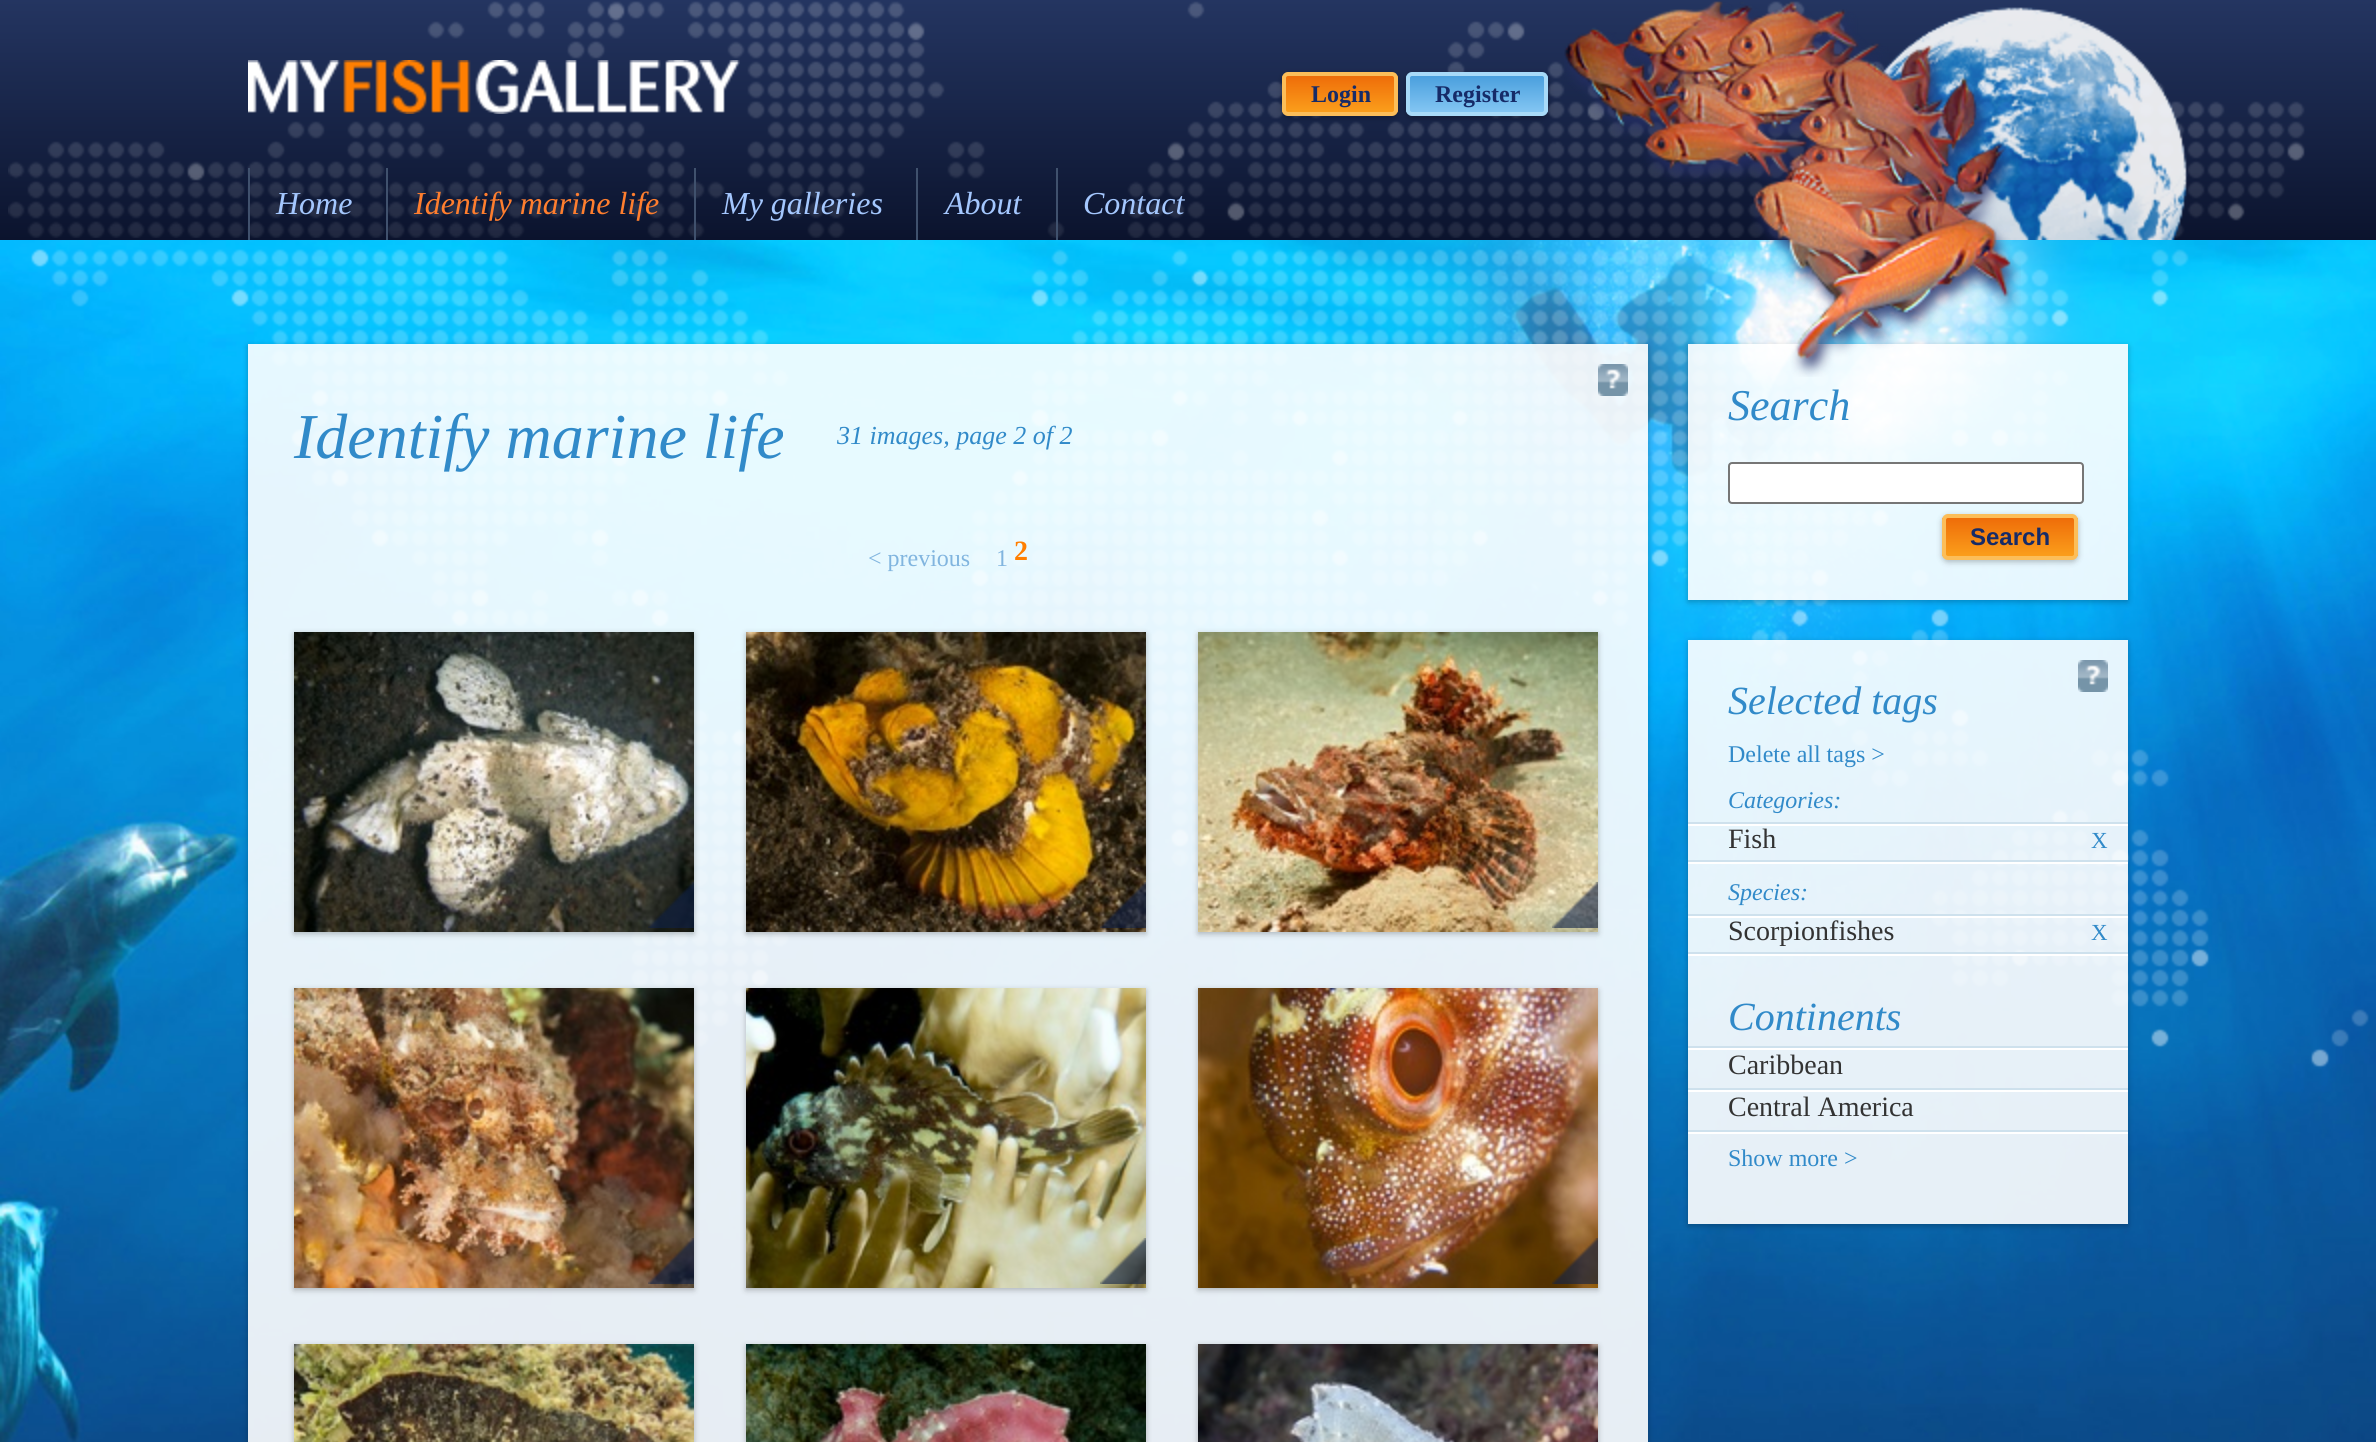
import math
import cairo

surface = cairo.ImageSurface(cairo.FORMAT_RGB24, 2376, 1442)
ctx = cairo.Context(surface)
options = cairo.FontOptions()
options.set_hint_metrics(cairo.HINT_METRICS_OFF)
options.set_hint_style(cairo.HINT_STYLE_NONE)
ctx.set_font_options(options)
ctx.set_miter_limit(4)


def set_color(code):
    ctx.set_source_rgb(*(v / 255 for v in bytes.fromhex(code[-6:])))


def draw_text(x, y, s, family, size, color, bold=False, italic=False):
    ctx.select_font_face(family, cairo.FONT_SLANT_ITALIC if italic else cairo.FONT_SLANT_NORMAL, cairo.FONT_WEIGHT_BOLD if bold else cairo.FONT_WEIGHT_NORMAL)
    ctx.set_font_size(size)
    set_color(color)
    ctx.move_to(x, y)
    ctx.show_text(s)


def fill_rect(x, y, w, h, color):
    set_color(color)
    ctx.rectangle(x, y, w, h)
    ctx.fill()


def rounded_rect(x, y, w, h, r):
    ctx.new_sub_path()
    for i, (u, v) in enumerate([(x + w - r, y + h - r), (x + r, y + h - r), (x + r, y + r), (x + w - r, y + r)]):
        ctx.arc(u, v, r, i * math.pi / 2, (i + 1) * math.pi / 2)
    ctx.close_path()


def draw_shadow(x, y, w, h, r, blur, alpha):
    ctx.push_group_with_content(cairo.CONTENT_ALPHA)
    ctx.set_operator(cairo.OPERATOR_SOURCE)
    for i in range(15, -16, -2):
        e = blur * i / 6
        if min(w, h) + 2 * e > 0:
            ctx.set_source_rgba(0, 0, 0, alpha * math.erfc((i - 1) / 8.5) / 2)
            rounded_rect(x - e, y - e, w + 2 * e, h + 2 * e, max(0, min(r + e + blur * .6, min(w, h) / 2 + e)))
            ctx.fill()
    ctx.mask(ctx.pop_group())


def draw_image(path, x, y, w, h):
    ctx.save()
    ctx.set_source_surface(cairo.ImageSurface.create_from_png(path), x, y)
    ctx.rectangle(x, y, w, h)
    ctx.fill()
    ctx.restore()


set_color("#ffffff")
ctx.paint()
draw_image("assets/img1.png", 0, 240, 2376, 1202)
gradient = cairo.LinearGradient(1188, 0, 1188, 240)
gradient.add_color_stop_rgba(0, 0.141, 0.208, 0.38, 1)
gradient.add_color_stop_rgba(1, 0.043, 0.075, 0.176, 1)
ctx.set_source(gradient)
ctx.rectangle(0, 0, 2376, 240)
ctx.fill()
draw_image("assets/img3.png", 248, 60, 492, 54)
draw_image("assets/img2.png", 8, 1, 2297, 237)
set_color("#000000")
draw_shadow(1282, 74, 116, 44, 6, 3, 0.25)
ctx.save()
rounded_rect(1282, 72, 116, 44, 6)
ctx.clip()
gradient = cairo.LinearGradient(1340, 76, 1340, 112)
gradient.add_color_stop_rgba(0, 0.937, 0.427, 0.035, 1)
gradient.add_color_stop_rgba(1, 0.984, 0.62, 0.106, 1)
ctx.set_source(gradient)
ctx.rectangle(1282, 76, 116, 36)
ctx.fill()
ctx.restore()
rounded_rect(1284, 74, 112, 40, 4)
set_color("#fcbe59")
ctx.set_line_width(4)
ctx.stroke()
draw_text(1311, 102, "Login", "Liberation Serif", 24, "#162b68", bold=True)
set_color("#000000")
draw_shadow(1406, 74, 142, 44, 6, 3, 0.25)
ctx.save()
rounded_rect(1406, 72, 142, 44, 6)
ctx.clip()
gradient = cairo.LinearGradient(1477, 76, 1477, 112)
gradient.add_color_stop_rgba(0, 0.29, 0.624, 0.867, 1)
gradient.add_color_stop_rgba(1, 0.514, 0.776, 0.953, 1)
ctx.set_source(gradient)
ctx.rectangle(1406, 76, 142, 36)
ctx.fill()
ctx.restore()
rounded_rect(1408, 74, 138, 40, 4)
set_color("#a8daf8")
ctx.stroke()
draw_text(1435, 102, "Register", "Liberation Serif", 24, "#162b68", bold=True)
draw_image("assets/img5.png", 1881, 7, 307, 233)
ctx.set_source_rgba(1, 1, 1, 0.9)
ctx.rectangle(248, 344, 1400, 1098)
ctx.fill()
ctx.rectangle(1688, 344, 440, 256)
ctx.fill()
ctx.save()
ctx.set_fill_rule(cairo.FILL_RULE_EVEN_ODD)
ctx.new_path()
ctx.move_to(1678, 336)
ctx.line_to(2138, 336)
ctx.line_to(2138, 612)
ctx.line_to(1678, 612)
ctx.close_path()
ctx.move_to(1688, 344)
ctx.line_to(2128, 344)
ctx.line_to(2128, 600)
ctx.line_to(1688, 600)
ctx.close_path()
ctx.clip()
set_color("#000000")
draw_shadow(1688, 346, 440, 256, 0, 3, 0.25)
ctx.restore()
draw_image("assets/img4.png", 1564, 1, 457, 376)
fill_rect(248, 168, 2, 72, "#40516d")
draw_text(276, 214, "Home", "Liberation Serif", 32, "#a4c7fe", italic=True)
fill_rect(386, 168, 2, 72, "#40516d")
draw_text(414, 214, "Identify marine life", "Liberation Serif", 32, "#ff7e2e", italic=True)
fill_rect(694, 168, 2, 72, "#40516d")
draw_text(722, 214, "My galleries", "Liberation Serif", 32, "#a4c7fe", italic=True)
fill_rect(916, 168, 2, 72, "#40516d")
draw_text(945, 214, "About", "Liberation Serif", 32, "#a4c7fe", italic=True)
fill_rect(1056, 168, 2, 72, "#40516d")
draw_text(1083, 214, "Contact", "Liberation Serif", 32, "#a4c7fe", italic=True)
ctx.save()
ctx.set_fill_rule(cairo.FILL_RULE_EVEN_ODD)
ctx.new_path()
ctx.move_to(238, 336)
ctx.line_to(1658, 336)
ctx.line_to(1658, 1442)
ctx.line_to(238, 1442)
ctx.close_path()
ctx.move_to(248, 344)
ctx.line_to(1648, 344)
ctx.line_to(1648, 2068)
ctx.line_to(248, 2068)
ctx.close_path()
ctx.clip()
set_color("#000000")
draw_shadow(248, 346, 1400, 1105, 0, 3, 0.25)
ctx.restore()
draw_image("assets/img6.png", 1598, 364, 30, 32)
draw_text(294, 458, "Identify marine life", "Liberation Serif", 64, "#318ac9", italic=True)
draw_text(837, 444, "31 images, page 2 of 2", "Liberation Serif", 26, "#318ac9", italic=True)
draw_text(868, 566, "< previous", "Liberation Serif", 24, "#81b5df")
draw_text(996, 566, "1", "Liberation Serif", 24, "#81b5df")
draw_text(1014, 560, "2", "Liberation Serif", 28, "#ff7f01", bold=True)
set_color("#000000")
draw_shadow(294, 634, 400, 300, 0, 3, 0.25)
draw_image("assets/img7.png", 294, 632, 400, 300)
draw_image("assets/img8.png", 648, 882, 46, 46)
draw_shadow(746, 634, 400, 300, 0, 3, 0.25)
draw_image("assets/img9.png", 746, 632, 400, 300)
draw_image("assets/img10.png", 1100, 882, 46, 46)
draw_shadow(1198, 634, 400, 300, 0, 3, 0.25)
draw_image("assets/img11.png", 1198, 632, 400, 300)
draw_image("assets/img12.png", 1552, 882, 46, 46)
draw_shadow(294, 990, 400, 300, 0, 3, 0.25)
draw_image("assets/img13.png", 294, 988, 400, 300)
draw_image("assets/img14.png", 648, 1238, 46, 46)
draw_shadow(746, 990, 400, 300, 0, 3, 0.25)
draw_image("assets/img15.png", 746, 988, 400, 300)
draw_image("assets/img16.png", 1100, 1238, 46, 46)
draw_shadow(1198, 990, 400, 300, 0, 3, 0.25)
draw_image("assets/img17.png", 1198, 988, 400, 300)
draw_image("assets/img18.png", 1552, 1238, 46, 46)
draw_shadow(294, 1346, 400, 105, 0, 3, 0.25)
draw_image("assets/img19.png", 294, 1344, 400, 98)
draw_shadow(746, 1346, 400, 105, 0, 3, 0.25)
draw_image("assets/img20.png", 746, 1344, 400, 98)
draw_shadow(1198, 1346, 400, 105, 0, 3, 0.25)
draw_image("assets/img21.png", 1198, 1344, 400, 98)
draw_text(1728, 420, "Search", "Liberation Serif", 44, "#318ac9", italic=True)
set_color("#ffffff")
rounded_rect(1729, 463, 354, 40, 3)
ctx.fill_preserve()
set_color("#767676")
ctx.set_line_width(2)
ctx.stroke()
set_color("#000000")
draw_shadow(1942, 516, 136, 46, 6, 3, 0.25)
ctx.save()
rounded_rect(1942, 514, 136, 46, 6)
ctx.clip()
gradient = cairo.LinearGradient(2010, 518, 2010, 556)
gradient.add_color_stop_rgba(0, 0.937, 0.427, 0.035, 1)
gradient.add_color_stop_rgba(1, 0.984, 0.62, 0.106, 1)
ctx.set_source(gradient)
ctx.rectangle(1942, 518, 136, 38)
ctx.fill()
ctx.restore()
rounded_rect(1944, 516, 132, 42, 4)
set_color("#fcbe59")
ctx.set_line_width(4)
ctx.stroke()
draw_text(1970, 545, "Search", "Liberation Sans", 24, "#162b68", bold=True)
ctx.set_source_rgba(1, 1, 1, 0.9)
ctx.rectangle(1688, 640, 440, 584)
ctx.fill()
ctx.save()
ctx.set_fill_rule(cairo.FILL_RULE_EVEN_ODD)
ctx.new_path()
ctx.move_to(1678, 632)
ctx.line_to(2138, 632)
ctx.line_to(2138, 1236)
ctx.line_to(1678, 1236)
ctx.close_path()
ctx.move_to(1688, 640)
ctx.line_to(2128, 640)
ctx.line_to(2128, 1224)
ctx.line_to(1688, 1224)
ctx.close_path()
ctx.clip()
set_color("#000000")
draw_shadow(1688, 642, 440, 584, 0, 3, 0.25)
ctx.restore()
draw_image("assets/img22.png", 2078, 660, 30, 32)
draw_text(1728, 714, "Selected tags", "Liberation Serif", 40, "#318ac9", italic=True)
draw_text(1728, 762, "Delete all tags >", "Liberation Serif", 24, "#318ac9")
fill_rect(1688, 824, 440, 2, "#ffffff")
fill_rect(1688, 822, 440, 2, "#cee1ed")
draw_text(1728, 808, "Categories:", "Liberation Serif", 24, "#318ac9", italic=True)
fill_rect(1688, 862, 440, 2, "#ffffff")
fill_rect(1688, 860, 440, 2, "#cee1ed")
draw_text(1728, 848, "Fish", "Liberation Serif", 28, "#333333")
draw_text(2091, 848, "X", "Liberation Serif", 23, "#318ac9")
fill_rect(1688, 916, 440, 2, "#ffffff")
fill_rect(1688, 914, 440, 2, "#cee1ed")
draw_text(1728, 900, "Species:", "Liberation Serif", 24, "#318ac9", italic=True)
fill_rect(1688, 954, 440, 2, "#ffffff")
fill_rect(1688, 952, 440, 2, "#cee1ed")
draw_text(1728, 940, "Scorpionfishes", "Liberation Serif", 28, "#333333")
draw_text(2091, 940, "X", "Liberation Serif", 23, "#318ac9")
fill_rect(1688, 1048, 440, 2, "#ffffff")
fill_rect(1688, 1046, 440, 2, "#cee1ed")
draw_text(1728, 1030, "Continents", "Liberation Serif", 40, "#318ac9", italic=True)
fill_rect(1688, 1090, 440, 2, "#ffffff")
fill_rect(1688, 1088, 440, 2, "#cee1ed")
draw_text(1728, 1074, "Caribbean", "Liberation Serif", 28, "#333333")
fill_rect(1688, 1132, 440, 2, "#ffffff")
fill_rect(1688, 1130, 440, 2, "#cee1ed")
draw_text(1728, 1116, "Central America", "Liberation Serif", 28, "#333333")
draw_text(1728, 1166, "Show more >", "Liberation Serif", 24, "#318ac9")
surface.write_to_png("output.png")
